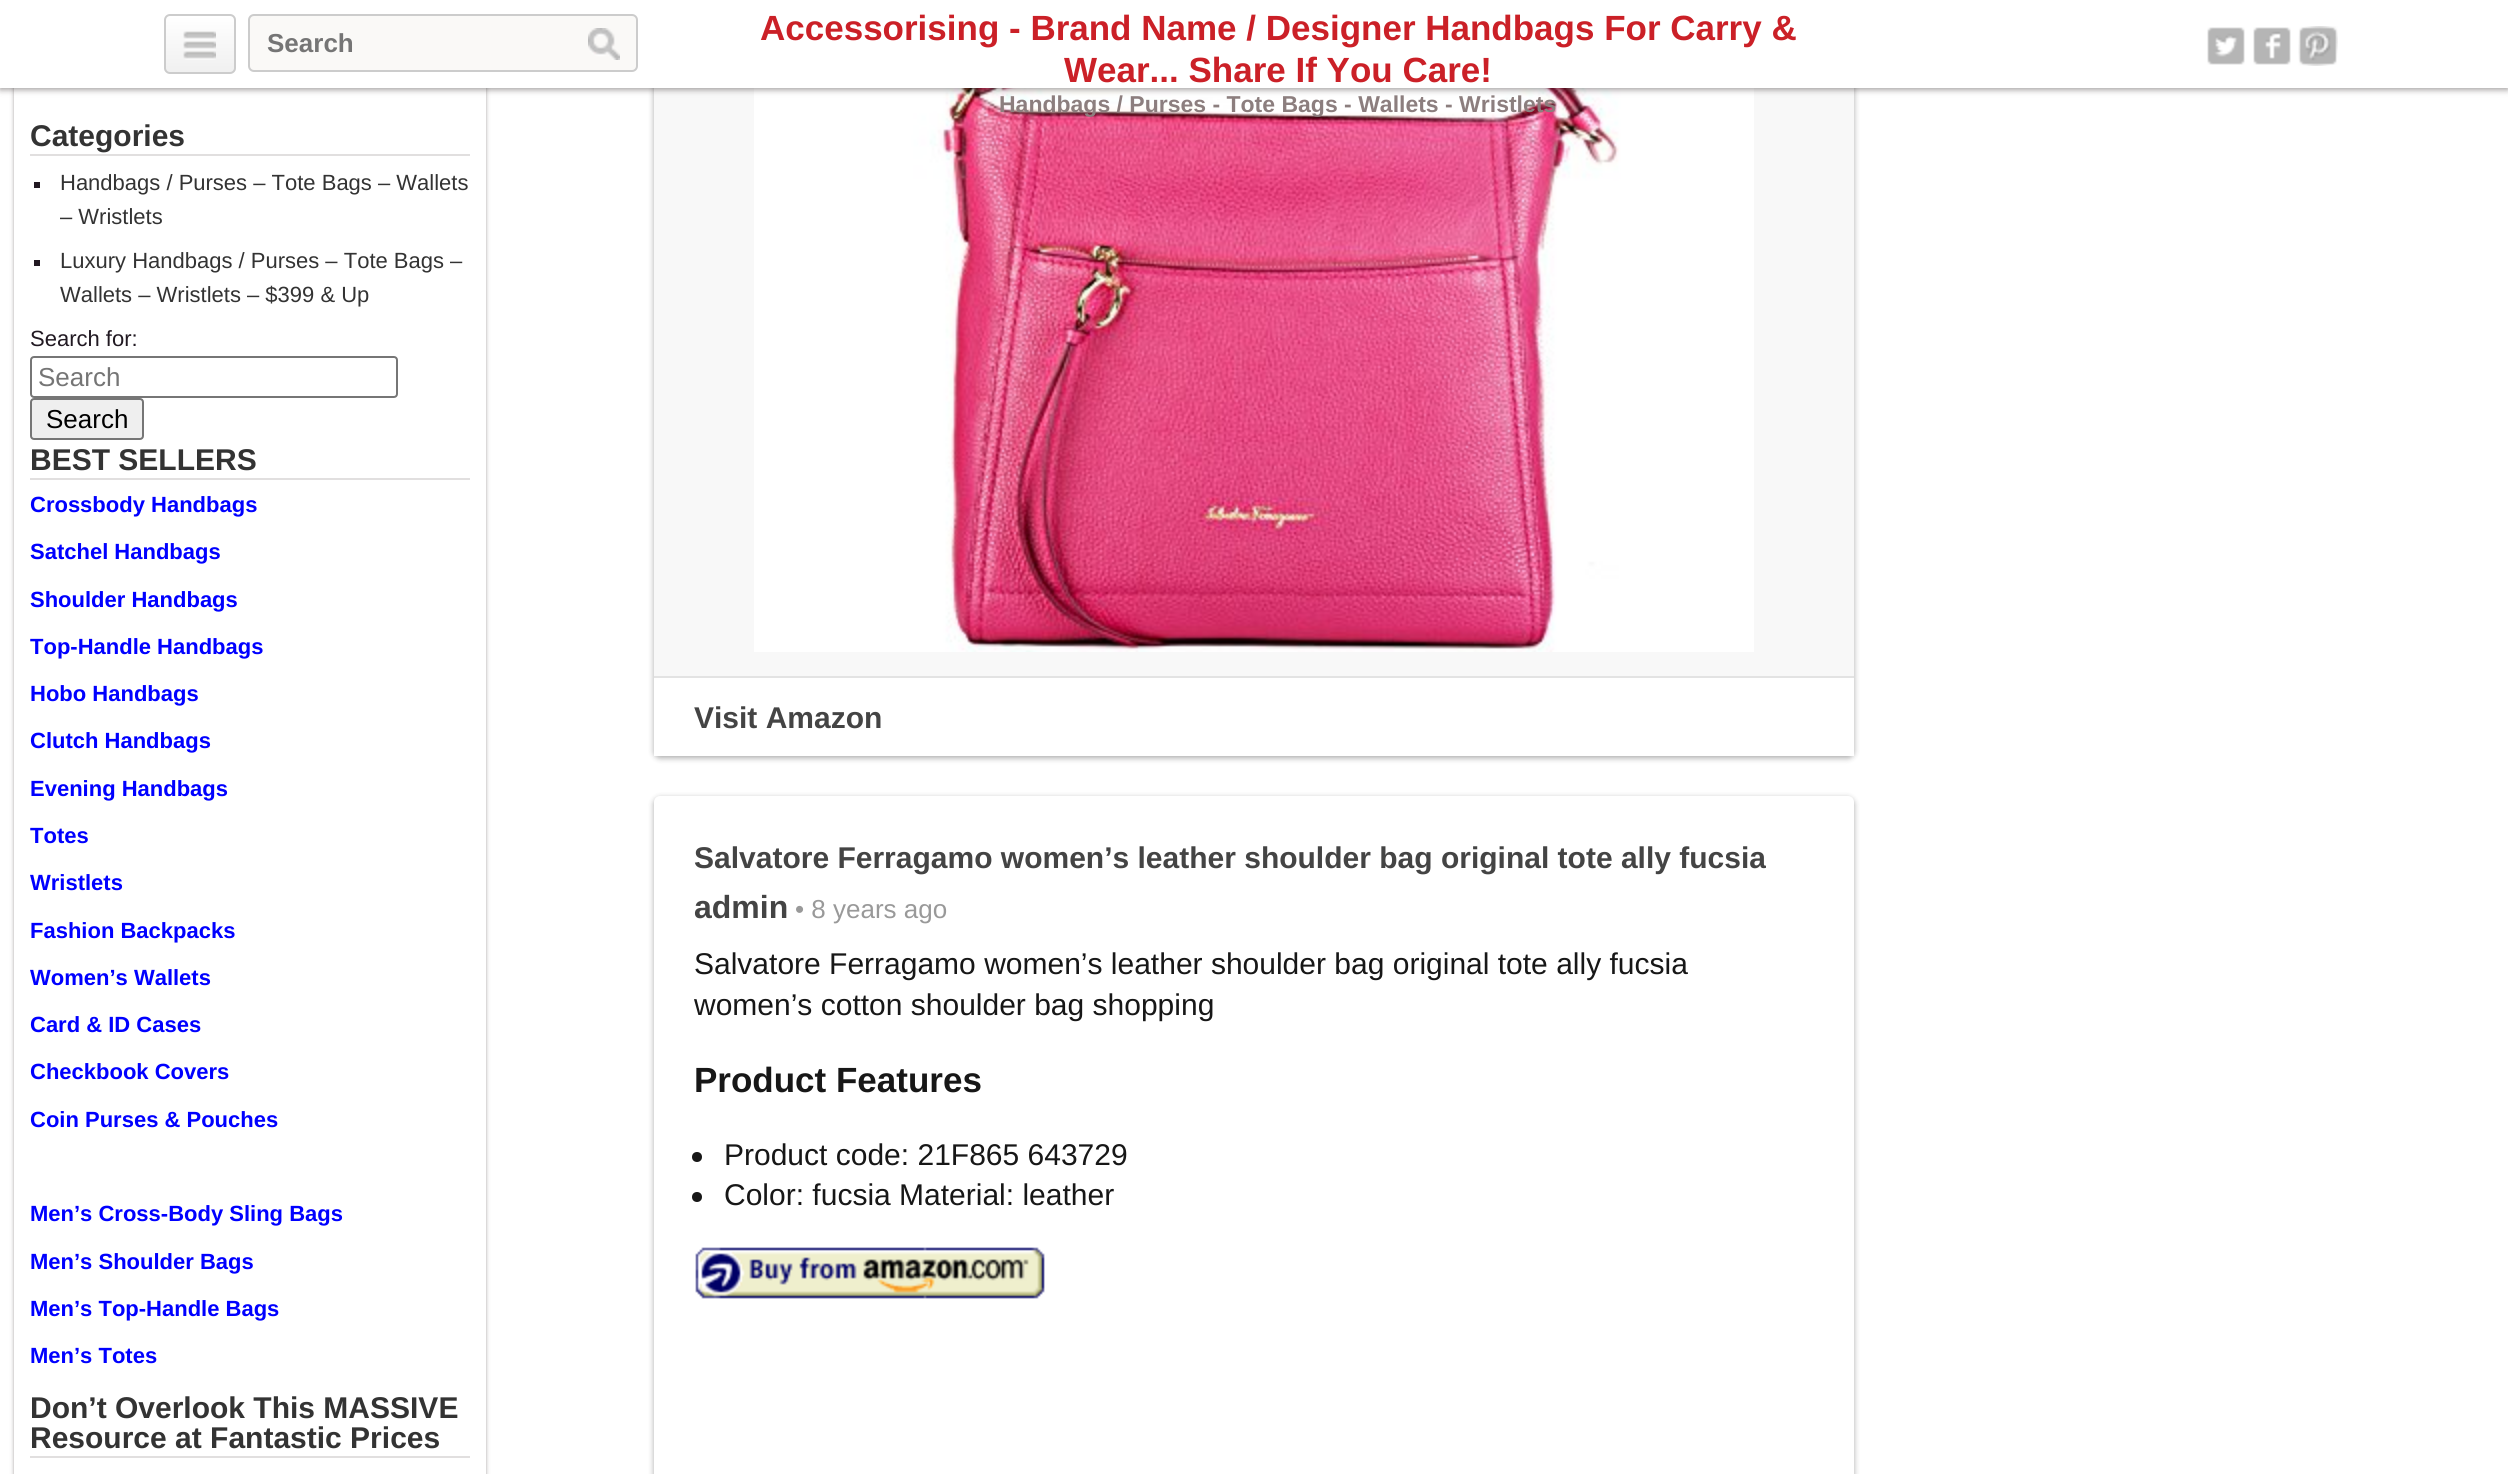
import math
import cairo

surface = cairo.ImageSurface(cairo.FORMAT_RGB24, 2508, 1474)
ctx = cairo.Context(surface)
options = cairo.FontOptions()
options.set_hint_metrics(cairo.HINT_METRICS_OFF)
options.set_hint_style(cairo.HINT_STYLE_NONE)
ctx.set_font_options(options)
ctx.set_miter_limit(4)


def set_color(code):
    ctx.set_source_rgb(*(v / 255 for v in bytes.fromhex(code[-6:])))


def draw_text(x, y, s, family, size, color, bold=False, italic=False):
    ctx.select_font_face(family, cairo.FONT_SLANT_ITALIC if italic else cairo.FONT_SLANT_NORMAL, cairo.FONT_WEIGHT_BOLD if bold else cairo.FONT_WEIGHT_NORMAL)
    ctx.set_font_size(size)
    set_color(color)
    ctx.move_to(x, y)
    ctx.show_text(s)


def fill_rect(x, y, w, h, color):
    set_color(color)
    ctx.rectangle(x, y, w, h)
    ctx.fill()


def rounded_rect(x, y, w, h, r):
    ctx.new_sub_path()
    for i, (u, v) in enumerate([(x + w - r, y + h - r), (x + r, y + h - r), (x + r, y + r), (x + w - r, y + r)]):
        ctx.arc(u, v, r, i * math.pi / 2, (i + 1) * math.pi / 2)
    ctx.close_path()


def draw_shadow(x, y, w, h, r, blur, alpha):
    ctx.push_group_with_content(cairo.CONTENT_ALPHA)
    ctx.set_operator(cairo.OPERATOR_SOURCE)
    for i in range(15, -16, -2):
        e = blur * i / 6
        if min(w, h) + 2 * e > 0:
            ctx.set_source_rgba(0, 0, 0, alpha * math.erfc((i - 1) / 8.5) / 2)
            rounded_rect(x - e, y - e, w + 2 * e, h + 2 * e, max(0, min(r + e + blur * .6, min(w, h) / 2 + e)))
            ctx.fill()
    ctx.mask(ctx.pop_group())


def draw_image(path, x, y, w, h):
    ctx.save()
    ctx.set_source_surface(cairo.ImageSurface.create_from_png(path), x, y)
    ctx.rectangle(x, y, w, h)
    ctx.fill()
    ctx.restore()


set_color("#ffffff")
ctx.paint()
set_color("#000000")
draw_shadow(654, -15, 1200, 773, 6, 3, 0.33)
fill_rect(654, 88, 1200, 588, "#f8f8f8")
draw_image("assets/img6.png", 754, 88, 1000, 564)
set_color("#221919")
draw_shadow(0, 2, 2508, 88, 0, 3, 0.4)
ctx.save()
ctx.set_fill_rule(cairo.FILL_RULE_EVEN_ODD)
ctx.new_path()
ctx.move_to(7, 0)
ctx.line_to(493, 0)
ctx.line_to(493, 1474)
ctx.line_to(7, 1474)
ctx.close_path()
ctx.move_to(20, -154)
ctx.line_to(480, -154)
ctx.curve_to(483.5, -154, 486, -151.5, 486, -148)
ctx.line_to(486, 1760)
ctx.curve_to(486, 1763.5, 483.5, 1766, 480, 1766)
ctx.line_to(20, 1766)
ctx.curve_to(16.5, 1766, 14, 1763.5, 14, 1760)
ctx.line_to(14, -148)
ctx.curve_to(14, -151.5, 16.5, -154, 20, -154)
ctx.close_path()
ctx.clip()
draw_shadow(14, -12, 472, 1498, 6, 2, 0.4)
ctx.restore()
fill_rect(0, 0, 2508, 88, "#ffffff")
ctx.save()
rounded_rect(164, 14, 72, 60, 6)
ctx.clip()
gradient = cairo.LinearGradient(200, 16, 200, 72)
gradient.add_color_stop_rgba(0, 1, 1, 1, 1)
gradient.add_color_stop_rgba(1, 0.941, 0.941, 0.941, 1)
ctx.set_source(gradient)
ctx.rectangle(164, 16, 72, 56)
ctx.fill()
ctx.restore()
rounded_rect(165, 15, 70, 58, 5)
set_color("#cccccc")
ctx.stroke()
draw_image("assets/img1.png", 183, 31, 33, 29)
set_color("#faf9f7")
rounded_rect(249, 15, 388, 56, 5)
ctx.fill_preserve()
set_color("#cccccc")
ctx.stroke()
draw_text(267, 52, "Search", "Liberation Sans", 26, "#757575", bold=True)
draw_image("assets/img2.png", 588, 28, 32, 32)
draw_text(760, 40, "Accessorising - Brand Name / Designer Handbags For Carry &", "Liberation Sans", 35, "#cb2027", bold=True)
draw_text(1064, 82, "Wear... Share If You Care!", "Liberation Sans", 35, "#cb2027", bold=True)
draw_text(999, 112, "Handbags / Purses - Tote Bags - Wallets - Wristlets", "Liberation Sans", 23, "#8c7e7e", bold=True)
draw_image("assets/img3.png", 2207, 27, 38, 38)
draw_image("assets/img4.png", 2253, 27, 38, 38)
draw_image("assets/img5.png", 2298, 26, 40, 40)
fill_rect(30, 154, 440, 2, "#e1dfdf")
draw_text(30, 146, "Categories", "Liberation Sans", 30, "#333333", bold=True)
fill_rect(34, 182, 6, 6, "#211922")
draw_text(60, 190, "Handbags / Purses – Tote Bags – Wallets", "Liberation Sans", 22, "#333333")
draw_text(60, 224, "– Wristlets", "Liberation Sans", 22, "#333333")
fill_rect(34, 260, 6, 6, "#211922")
draw_text(60, 268, "Luxury Handbags / Purses – Tote Bags –", "Liberation Sans", 22, "#333333")
draw_text(60, 302, "Wallets – Wristlets – $399 & Up", "Liberation Sans", 22, "#333333")
draw_text(30, 346, "Search for:", "Liberation Sans", 22, "#211922")
rounded_rect(31, 357, 366, 40, 3)
set_color("#767676")
ctx.stroke()
draw_text(38, 386, "Search", "Liberation Sans", 26, "#757575")
set_color("#efefef")
rounded_rect(31, 399, 112, 40, 3)
ctx.fill_preserve()
set_color("#767676")
ctx.stroke()
draw_text(46, 428, "Search", "Liberation Sans", 26, "#000000")
fill_rect(30, 478, 440, 2, "#e1dfdf")
draw_text(30, 470, "BEST SELLERS", "Liberation Sans", 30, "#333333", bold=True)
draw_text(30, 512, "Crossbody Handbags", "Liberation Sans", 22, "#0000ff", bold=True)
draw_text(30, 559, "Satchel Handbags", "Liberation Sans", 22, "#0000ff", bold=True)
draw_text(30, 607, "Shoulder Handbags", "Liberation Sans", 22, "#0000ff", bold=True)
draw_text(30, 654, "Top-Handle Handbags", "Liberation Sans", 22, "#0000ff", bold=True)
draw_text(30, 701, "Hobo Handbags", "Liberation Sans", 22, "#0000ff", bold=True)
draw_text(30, 748, "Clutch Handbags", "Liberation Sans", 22, "#0000ff", bold=True)
draw_text(30, 796, "Evening Handbags", "Liberation Sans", 22, "#0000ff", bold=True)
draw_text(30, 843, "Totes", "Liberation Sans", 22, "#0000ff", bold=True)
draw_text(30, 890, "Wristlets", "Liberation Sans", 22, "#0000ff", bold=True)
draw_text(30, 938, "Fashion Backpacks", "Liberation Sans", 22, "#0000ff", bold=True)
draw_text(30, 985, "Women’s Wallets", "Liberation Sans", 22, "#0000ff", bold=True)
draw_text(30, 1032, "Card & ID Cases", "Liberation Sans", 22, "#0000ff", bold=True)
draw_text(30, 1079, "Checkbook Covers", "Liberation Sans", 22, "#0000ff", bold=True)
draw_text(30, 1127, "Coin Purses & Pouches", "Liberation Sans", 22, "#0000ff", bold=True)
draw_text(30, 1221, "Men’s Cross-Body Sling Bags", "Liberation Sans", 22, "#0000ff", bold=True)
draw_text(30, 1269, "Men’s Shoulder Bags", "Liberation Sans", 22, "#0000ff", bold=True)
draw_text(30, 1316, "Men’s Top-Handle Bags", "Liberation Sans", 22, "#0000ff", bold=True)
draw_text(30, 1363, "Men’s Totes", "Liberation Sans", 22, "#0000ff", bold=True)
fill_rect(30, 1456, 440, 2, "#e1dfdf")
draw_text(30, 1418, "Don’t Overlook This MASSIVE", "Liberation Sans", 30, "#333333", bold=True)
draw_text(30, 1448, "Resource at Fantastic Prices", "Liberation Sans", 30, "#333333", bold=True)
fill_rect(654, 678, 1200, 78, "#ffffff")
fill_rect(654, 676, 1200, 2, "#e3e3e3")
draw_text(694, 728, "Visit Amazon", "Liberation Sans", 30, "#444444", bold=True)
set_color("#000000")
draw_shadow(654, 798, 1200, 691, 6, 3, 0.33)
set_color("#ffffff")
rounded_rect(654, 796, 1200, 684, 6)
ctx.fill()
draw_text(694, 868, "Salvatore Ferragamo women’s leather shoulder bag original tote ally fucsia", "Liberation Sans", 30, "#444444", bold=True)
draw_text(694, 918, "admin", "Liberation Sans", 32, "#444444", bold=True)
draw_text(795, 918, "• 8 years ago", "Liberation Sans", 26, "#999999")
draw_text(694, 974, "Salvatore Ferragamo women’s leather shoulder bag original tote ally fucsia", "Liberation Sans", 30, "#171717")
draw_text(694, 1015, "women’s cotton shoulder bag shopping", "Liberation Sans", 30, "#171717")
draw_text(694, 1092, "Product Features", "Liberation Sans", 35, "#171717", bold=True)
ctx.new_path()
ctx.arc(697, 1157, 5, 0, 2 * math.pi)
ctx.fill()
draw_text(724, 1165, "Product code: 21F865 643729", "Liberation Sans", 30, "#171717")
ctx.new_path()
ctx.arc(697, 1197, 5, 0, 2 * math.pi)
ctx.fill()
draw_text(724, 1205, "Color: fucsia Material: leather", "Liberation Sans", 30, "#171717")
draw_image("assets/img7.png", 695, 1247, 350, 52)
surface.write_to_png("output.png")
